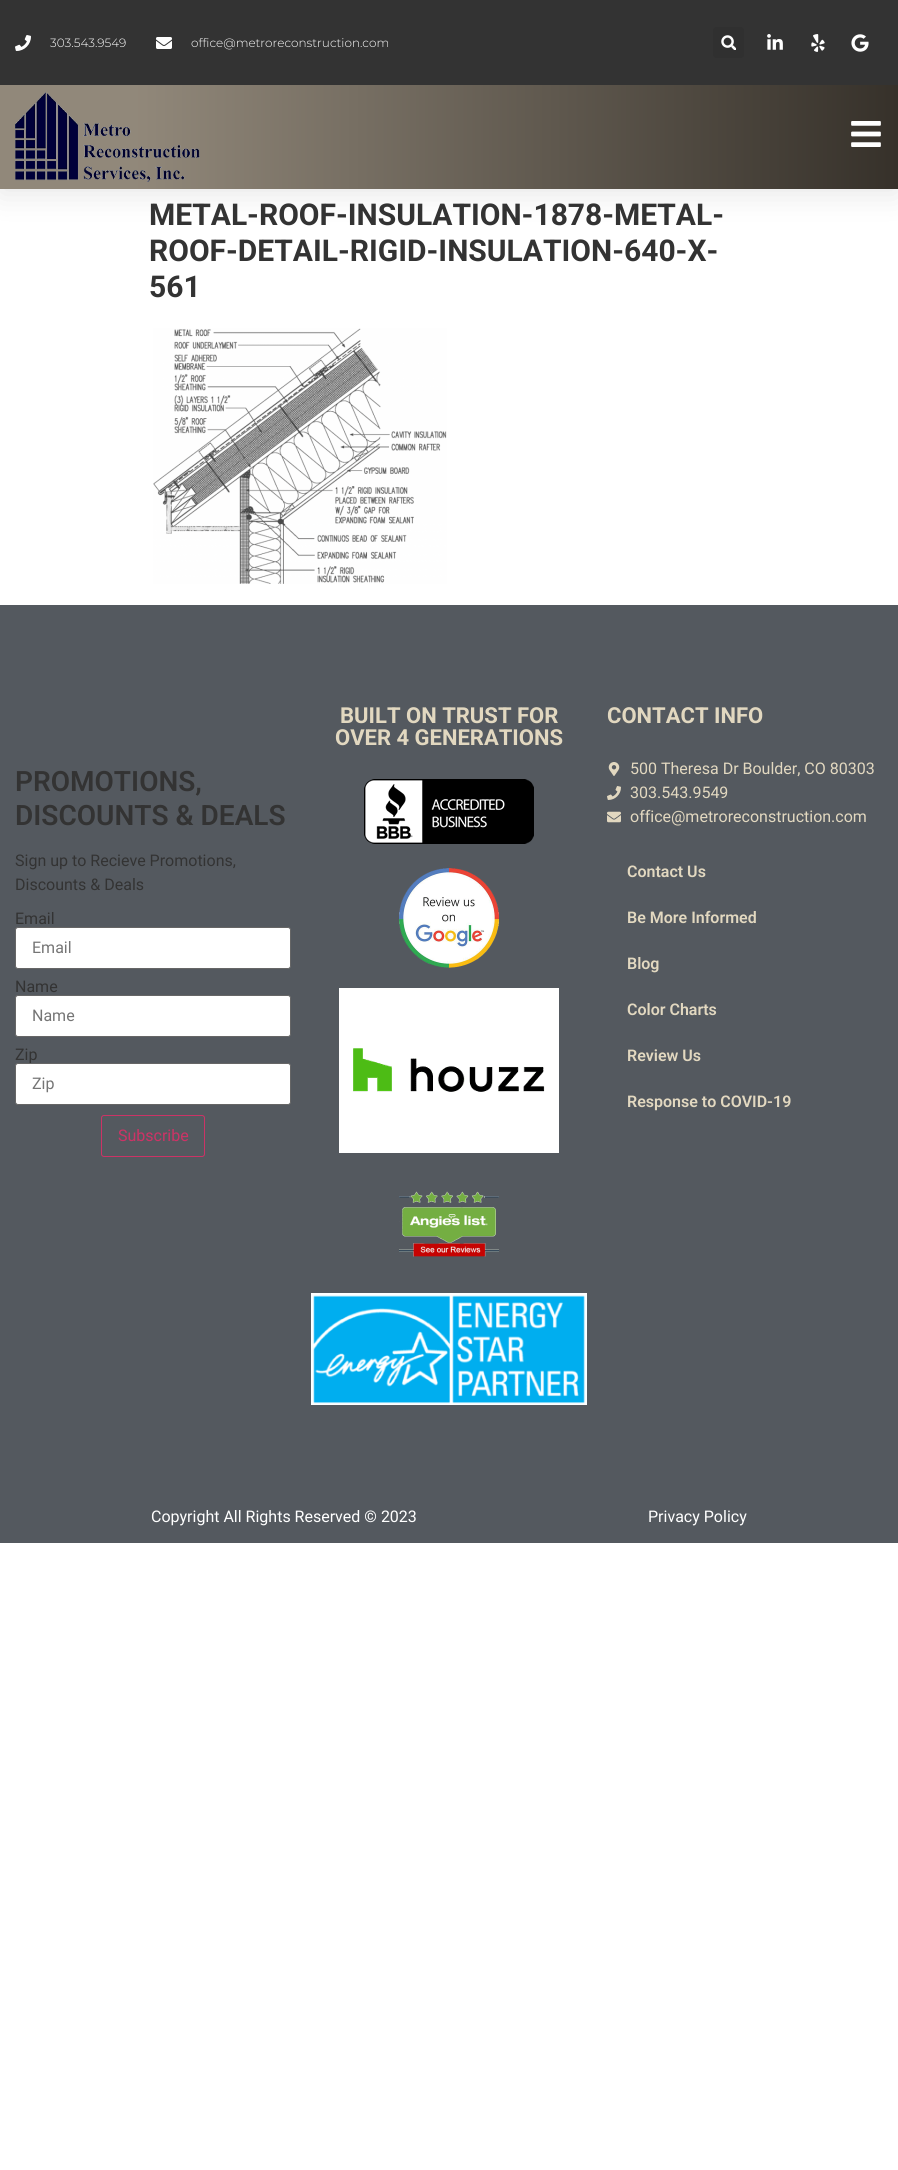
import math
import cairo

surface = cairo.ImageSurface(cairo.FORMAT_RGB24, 898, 2170)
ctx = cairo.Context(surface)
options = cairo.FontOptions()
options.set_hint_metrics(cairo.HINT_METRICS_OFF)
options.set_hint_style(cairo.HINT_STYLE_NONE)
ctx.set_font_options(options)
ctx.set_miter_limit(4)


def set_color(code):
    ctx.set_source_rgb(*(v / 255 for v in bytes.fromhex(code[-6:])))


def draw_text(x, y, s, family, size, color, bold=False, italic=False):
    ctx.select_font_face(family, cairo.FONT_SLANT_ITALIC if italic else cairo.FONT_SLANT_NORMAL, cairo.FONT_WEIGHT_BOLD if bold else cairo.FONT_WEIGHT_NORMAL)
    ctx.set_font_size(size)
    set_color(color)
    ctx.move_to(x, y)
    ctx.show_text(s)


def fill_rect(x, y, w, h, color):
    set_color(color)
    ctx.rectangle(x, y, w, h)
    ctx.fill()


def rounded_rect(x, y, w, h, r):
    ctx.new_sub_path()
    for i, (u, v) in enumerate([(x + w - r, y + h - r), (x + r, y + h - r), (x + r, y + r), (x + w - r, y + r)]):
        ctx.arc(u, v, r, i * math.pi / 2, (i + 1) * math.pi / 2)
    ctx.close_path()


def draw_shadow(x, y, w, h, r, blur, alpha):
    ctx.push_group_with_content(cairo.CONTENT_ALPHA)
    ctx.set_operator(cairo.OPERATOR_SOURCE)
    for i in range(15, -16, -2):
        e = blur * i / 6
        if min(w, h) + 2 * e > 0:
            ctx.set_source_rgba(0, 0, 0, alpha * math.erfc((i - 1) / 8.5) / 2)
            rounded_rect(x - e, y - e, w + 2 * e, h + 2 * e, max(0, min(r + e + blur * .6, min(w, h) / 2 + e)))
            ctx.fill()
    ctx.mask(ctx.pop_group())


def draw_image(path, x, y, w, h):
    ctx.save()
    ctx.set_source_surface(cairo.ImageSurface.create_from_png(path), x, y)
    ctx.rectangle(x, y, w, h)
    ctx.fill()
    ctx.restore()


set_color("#ffffff")
ctx.paint()
set_color("#000000")
draw_shadow(0, 5, 898, 189, 0, 15, 0.1)
fill_rect(0, 0, 898, 85, "#333333")
draw_image("assets/img1.png", 15, 35, 16, 16)
draw_text(50, 47, "303.543.9549", "Montserrat Light", 12, "#ffffff")
draw_image("assets/img2.png", 156, 37, 16, 12)
draw_text(191, 47, "office@metroreconstruction.com", "Montserrat Light", 12, "#ffffff")
set_color("#303030")
rounded_rect(713, 27, 31, 31, 3)
ctx.fill()
draw_image("assets/img3.png", 721, 35, 15, 15)
draw_image("assets/img4.png", 767, 34, 16, 16)
draw_image("assets/img5.png", 811, 34, 14, 18)
draw_image("assets/img6.png", 851, 34, 18, 18)
gradient = cairo.LinearGradient(0, 137, 898, 137)
gradient.add_color_stop_rgba(0.15, 0.569, 0.533, 0.478, 1)
gradient.add_color_stop_rgba(1, 0.212, 0.192, 0.165, 1)
ctx.set_source(gradient)
ctx.rectangle(0, 85, 898, 104)
ctx.fill()
draw_image("assets/img7.png", 15, 92, 185, 90)
draw_image("assets/img8.png", 851, 121, 30, 26)
draw_text(149, 225, "METAL-ROOF-INSULATION-1878-METAL-", "Roboto", 30, "#333333", bold=True)
draw_text(149, 261, "ROOF-DETAIL-RIGID-INSULATION-640-X-", "Roboto", 30, "#333333", bold=True)
draw_text(149, 297, "561", "Roboto", 30, "#333333", bold=True)
draw_image("assets/img9.png", 153, 328, 294, 256)
fill_rect(0, 605, 898, 938, "#54595f")
draw_text(15, 791, "PROMOTIONS,", "Roboto SemiBold", 28, "#333333")
draw_text(15, 825, "DISCOUNTS & DEALS", "Roboto SemiBold", 28, "#333333")
draw_text(15, 866, "Sign up to Recieve Promotions,", "Roboto", 16, "#333333")
draw_text(15, 890, "Discounts & Deals", "Roboto", 16, "#333333")
draw_text(15, 924, "Email", "Roboto", 16, "#333333")
set_color("#ffffff")
rounded_rect(15.5, 927.5, 275, 41, 2.5)
ctx.fill_preserve()
set_color("#666666")
ctx.set_line_width(1)
ctx.stroke()
draw_text(32, 953, "Email", "Roboto", 16, "#757575")
draw_text(15, 992, "Name", "Roboto", 16, "#333333")
set_color("#ffffff")
rounded_rect(15.5, 995.5, 275, 41, 2.5)
ctx.fill_preserve()
set_color("#666666")
ctx.stroke()
draw_text(32, 1021, "Name", "Roboto", 16, "#757575")
draw_text(15, 1060, "Zip", "Roboto", 16, "#333333")
set_color("#ffffff")
rounded_rect(15.5, 1063.5, 275, 41, 2.5)
ctx.fill_preserve()
set_color("#666666")
ctx.stroke()
draw_text(32, 1089, "Zip", "Roboto", 16, "#757575")
rounded_rect(101.5, 1115.5, 103, 41, 2.5)
set_color("#cc3366")
ctx.stroke()
draw_text(118, 1141, "Subscribe", "Roboto", 16, "#cc3366")
draw_text(340, 723, "BUILT ON TRUST FOR", "Roboto", 22, "#e2d8c0", bold=True)
draw_text(335, 745, "OVER 4 GENERATIONS", "Roboto", 22, "#e2d8c0", bold=True)
draw_image("assets/img10.png", 364, 779, 170, 65)
draw_image("assets/img11.png", 399, 868, 100, 100)
draw_image("assets/img12.png", 339, 988, 220, 165)
draw_image("assets/img13.png", 399, 1191, 100, 66)
draw_image("assets/img14.png", 311, 1293, 276, 112)
draw_text(607, 723, "CONTACT INFO", "Roboto", 22, "#e2d8c0", bold=True)
draw_image("assets/img15.png", 608, 762, 12, 14)
draw_text(630, 774, "500 Theresa Dr Boulder, CO 80303", "Roboto", 16, "#e2d8c0")
draw_image("assets/img16.png", 607, 786, 14, 14)
draw_text(630, 798, "303.543.9549", "Roboto", 16, "#e2d8c0")
draw_image("assets/img17.png", 607, 811, 14, 12)
draw_text(630, 822, "office@metroreconstruction.com", "Roboto", 16, "#e2d8c0")
draw_text(627, 877, "Contact Us", "Roboto SemiBold", 16, "#e2d8c0")
draw_text(627, 923, "Be More Informed", "Roboto SemiBold", 16, "#e2d8c0")
draw_text(627, 969, "Blog", "Roboto SemiBold", 16, "#e2d8c0")
draw_text(627, 1015, "Color Charts", "Roboto SemiBold", 16, "#e2d8c0")
draw_text(627, 1061, "Review Us", "Roboto SemiBold", 16, "#e2d8c0")
draw_text(627, 1107, "Response to COVID-19", "Roboto SemiBold", 16, "#e2d8c0")
draw_text(151, 1522, "Copyright All Rights Reserved © 2023", "Roboto", 16, "#ffffff")
draw_text(648, 1522, "Privacy Policy", "Roboto", 16, "#ffffff")
surface.write_to_png("output.png")
